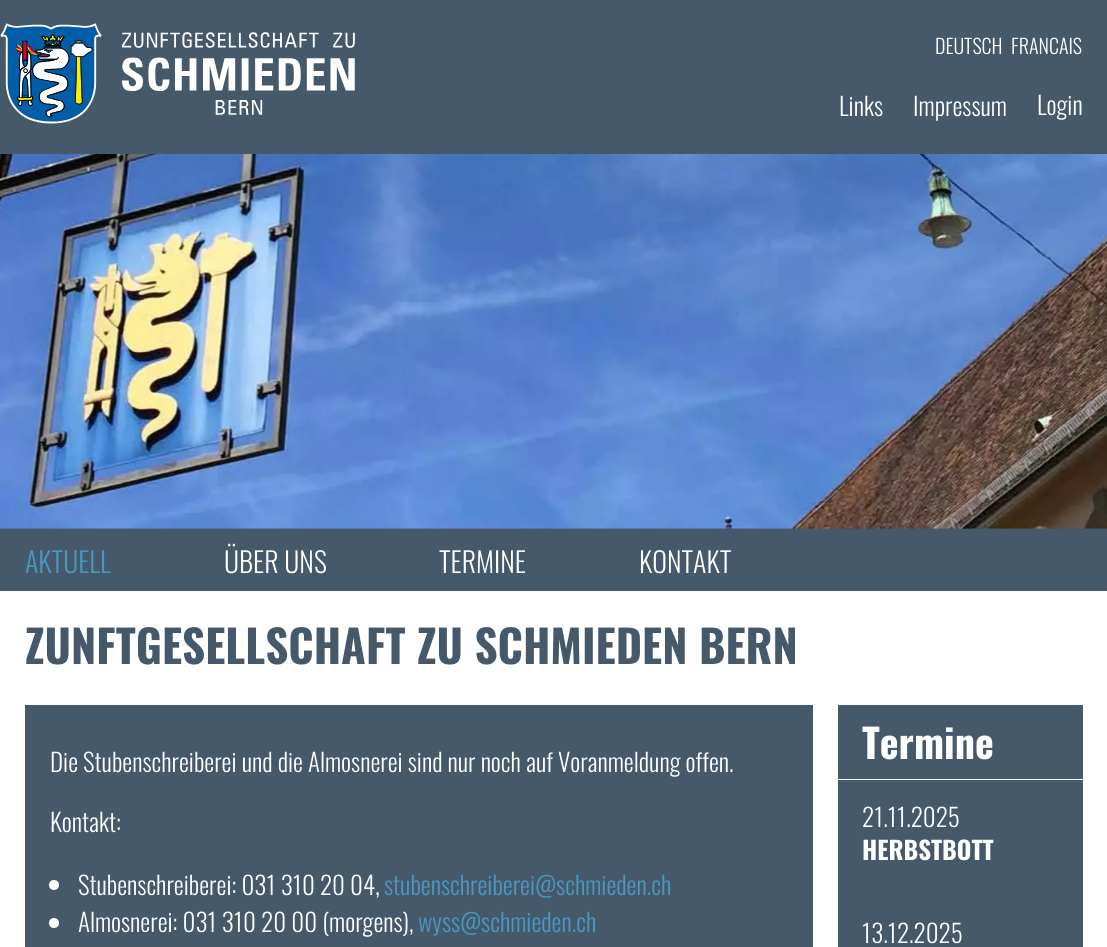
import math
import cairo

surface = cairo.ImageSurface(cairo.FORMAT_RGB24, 1107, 947)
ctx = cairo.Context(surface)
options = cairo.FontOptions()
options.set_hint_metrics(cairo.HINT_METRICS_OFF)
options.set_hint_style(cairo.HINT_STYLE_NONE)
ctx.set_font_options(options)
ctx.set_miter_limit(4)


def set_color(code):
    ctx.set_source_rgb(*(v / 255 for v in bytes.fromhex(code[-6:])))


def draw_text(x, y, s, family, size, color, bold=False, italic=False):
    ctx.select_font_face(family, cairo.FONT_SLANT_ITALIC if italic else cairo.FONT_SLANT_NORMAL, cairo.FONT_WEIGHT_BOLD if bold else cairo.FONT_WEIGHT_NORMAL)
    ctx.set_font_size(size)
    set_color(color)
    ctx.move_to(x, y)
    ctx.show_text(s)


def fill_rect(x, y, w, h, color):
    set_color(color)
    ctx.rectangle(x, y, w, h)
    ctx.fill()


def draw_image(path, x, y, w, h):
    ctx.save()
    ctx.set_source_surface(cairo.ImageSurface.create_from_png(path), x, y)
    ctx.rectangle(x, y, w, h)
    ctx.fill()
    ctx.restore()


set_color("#45596a")
ctx.paint()
draw_image("assets/img1.png", 0, 23, 355, 101)
draw_text(935, 54, "DEUTSCH", "Oswald Light", 20, "#ffffff")
draw_text(1011, 54, "FRANCAIS", "Oswald Light", 20, "#ffffff")
draw_text(839, 116, "Links", "Oswald Light", 25, "#ffffff")
draw_text(913, 116, "Impressum", "Oswald Light", 25, "#ffffff")
draw_text(1037, 115, "Login", "Oswald Light", 25, "#ffffff")
draw_image("assets/img2.png", 0, 154, 1107, 375)
draw_text(25, 573, "AKTUELL", "Oswald Light", 28, "#4a97c2")
draw_text(224, 573, "ÜBER UNS", "Oswald Light", 28, "#ffffff")
draw_text(439, 573, "TERMINE", "Oswald Light", 28, "#ffffff")
draw_text(639, 573, "KONTAKT", "Oswald Light", 28, "#ffffff")
fill_rect(0, 591, 1107, 356, "#ffffff")
draw_text(25, 664, "ZUNFTGESELLSCHAFT ZU SCHMIEDEN BERN", "Oswald", 45, "#45596a", bold=True)
fill_rect(25, 705, 788, 242, "#45596a")
draw_text(50, 772, "Die Stubenschreiberei und die Almosnerei sind nur noch auf Voranmeldung offen.", "Oswald Light", 25, "#ffffff")
draw_text(50, 832, "Kontakt:", "Oswald Light", 25, "#ffffff")
ctx.new_path()
ctx.arc(54, 885, 5, 0, 2 * math.pi)
ctx.fill()
draw_text(78, 895, "Stubenschreiberei: 031 310 20 04,", "Oswald Light", 25, "#ffffff")
draw_text(384, 895, "stubenschreiberei@schmieden.ch", "Oswald Light", 25, "#4a97c2")
set_color("#ffffff")
ctx.new_path()
ctx.arc(54, 923, 5, 0, 2 * math.pi)
ctx.fill()
draw_text(78, 932, "Almosnerei: 031 310 20 00 (morgens),", "Oswald Light", 25, "#ffffff")
draw_text(418, 932, "wyss@schmieden.ch", "Oswald Light", 25, "#4a97c2")
fill_rect(838, 705, 245, 242, "#45596a")
draw_text(862, 759, "Termine", "Oswald", 40, "#ffffff", bold=True)
fill_rect(838, 779, 245, 1, "#ffffff")
draw_text(862, 827, "21.11.2025", "Oswald Light", 25, "#ffffff")
draw_text(862, 860, "HERBSTBOTT", "Oswald", 25, "#ffffff", bold=True)
draw_text(862, 943, "13.12.2025", "Oswald Light", 25, "#ffffff")
surface.write_to_png("output.png")
